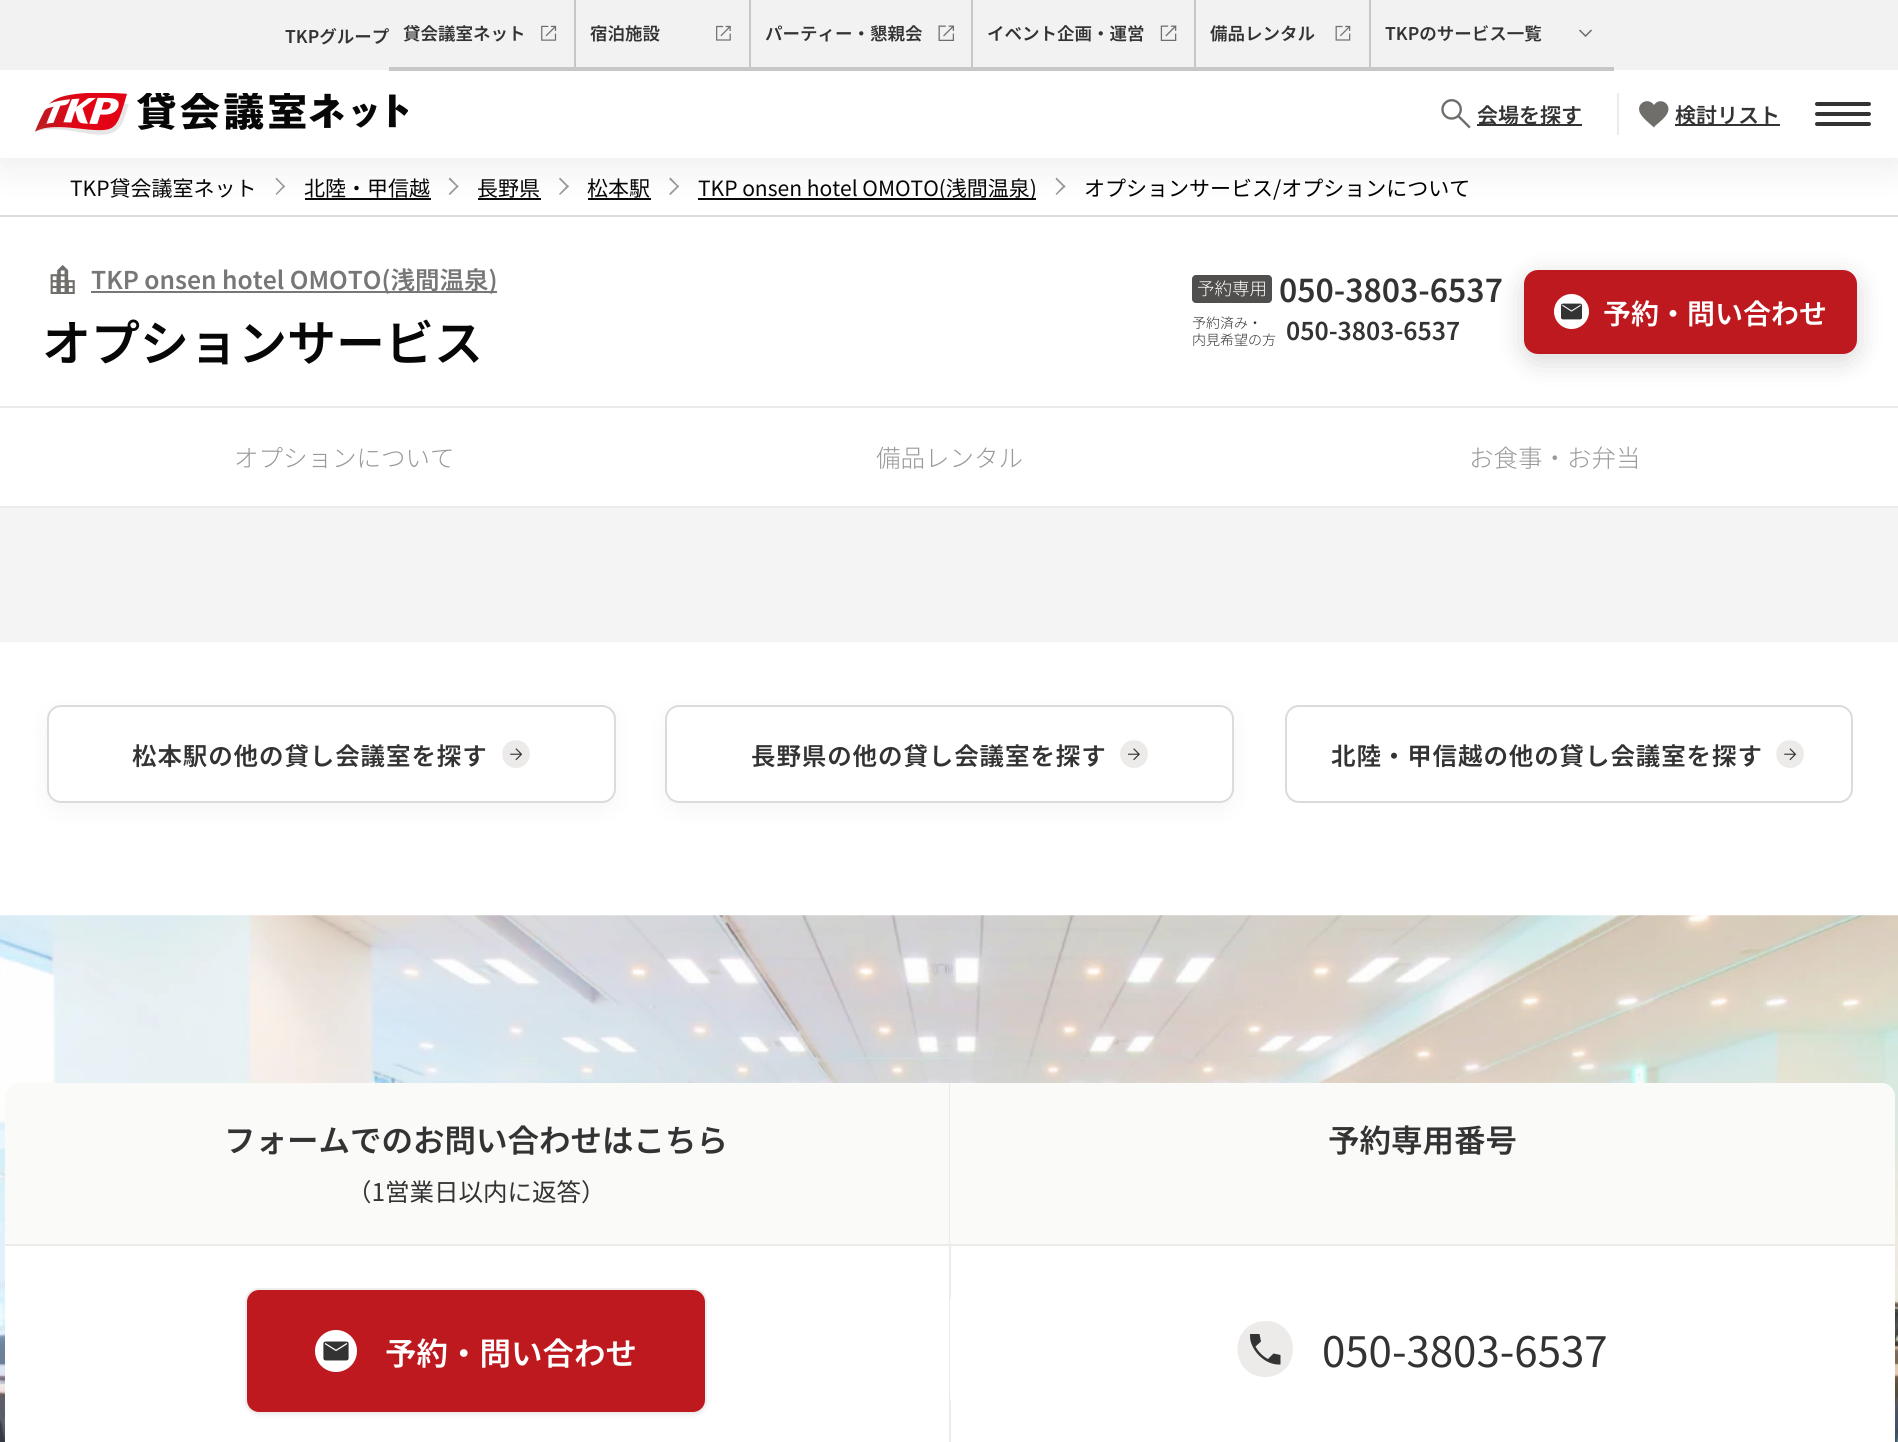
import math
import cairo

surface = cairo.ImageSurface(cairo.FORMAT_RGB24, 1898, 1442)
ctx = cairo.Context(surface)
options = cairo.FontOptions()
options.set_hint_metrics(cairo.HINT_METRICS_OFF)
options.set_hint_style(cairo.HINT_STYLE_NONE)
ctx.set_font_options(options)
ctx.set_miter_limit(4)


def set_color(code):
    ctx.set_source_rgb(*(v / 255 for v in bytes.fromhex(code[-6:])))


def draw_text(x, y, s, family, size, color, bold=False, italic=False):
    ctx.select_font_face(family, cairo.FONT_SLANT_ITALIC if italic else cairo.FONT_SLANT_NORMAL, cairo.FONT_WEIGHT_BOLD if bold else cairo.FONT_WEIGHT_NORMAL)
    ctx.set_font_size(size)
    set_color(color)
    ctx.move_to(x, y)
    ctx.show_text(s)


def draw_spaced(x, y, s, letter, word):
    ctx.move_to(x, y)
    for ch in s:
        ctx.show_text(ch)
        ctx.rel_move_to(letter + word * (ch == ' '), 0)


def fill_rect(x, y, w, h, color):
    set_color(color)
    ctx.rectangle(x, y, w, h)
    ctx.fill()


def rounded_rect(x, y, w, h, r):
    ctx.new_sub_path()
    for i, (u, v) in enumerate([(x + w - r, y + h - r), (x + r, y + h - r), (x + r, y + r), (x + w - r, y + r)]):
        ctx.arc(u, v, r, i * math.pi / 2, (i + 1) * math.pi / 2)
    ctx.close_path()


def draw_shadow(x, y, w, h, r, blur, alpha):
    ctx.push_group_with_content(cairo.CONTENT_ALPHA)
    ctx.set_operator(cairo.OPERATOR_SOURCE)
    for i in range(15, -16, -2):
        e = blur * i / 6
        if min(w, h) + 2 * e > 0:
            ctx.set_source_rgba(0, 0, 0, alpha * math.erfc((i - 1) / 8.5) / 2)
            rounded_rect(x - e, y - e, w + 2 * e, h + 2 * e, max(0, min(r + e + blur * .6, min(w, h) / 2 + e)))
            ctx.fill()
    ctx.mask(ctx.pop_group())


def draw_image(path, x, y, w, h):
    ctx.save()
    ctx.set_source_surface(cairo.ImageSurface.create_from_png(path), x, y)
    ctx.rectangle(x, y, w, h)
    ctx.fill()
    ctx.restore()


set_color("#ffffff")
ctx.paint()
set_color("#000000")
draw_shadow(0, 77, 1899, 88, 0, 21, 0.08)
fill_rect(0, 0, 1898, 70, "#f3f2f2")
draw_text(285, 43, "TKPグループ", "Noto Sans JP SemiBold", 17.5, "#333333")
fill_rect(574, 0, 2, 70, "#c9c7c5")
fill_rect(0, 70, 1898, 88, "#ffffff")
fill_rect(389, 67, 187, 4, "#c9c7c5")
draw_text(403, 40, "貸会議室ネット", "Noto Sans JP SemiBold", 17.5, "#333333")
draw_image("assets/img1.png", 541, 25, 16, 16)
fill_rect(749, 0, 2, 70, "#c9c7c5")
fill_rect(576, 67, 175, 4, "#c9c7c5")
draw_text(590, 40, "宿泊施設", "Noto Sans JP SemiBold", 17.5, "#333333")
draw_image("assets/img2.png", 716, 25, 15, 16)
fill_rect(971, 0, 2, 70, "#c9c7c5")
fill_rect(751, 67, 222, 4, "#c9c7c5")
draw_text(765, 40, "パーティー・懇親会", "Noto Sans JP SemiBold", 17.5, "#333333")
draw_image("assets/img3.png", 938, 25, 16, 16)
fill_rect(1194, 0, 2, 70, "#c9c7c5")
fill_rect(973, 67, 222, 4, "#c9c7c5")
draw_text(987, 40, "イベント企画・運営", "Noto Sans JP SemiBold", 17.5, "#333333")
draw_image("assets/img4.png", 1160, 25, 17, 16)
fill_rect(1369, 0, 2, 70, "#c9c7c5")
fill_rect(1195, 67, 419, 4, "#c9c7c5")
draw_text(1210, 40, "備品レンタル", "Noto Sans JP SemiBold", 17.5, "#333333")
draw_image("assets/img5.png", 1335, 25, 16, 16)
draw_text(1385, 40, "TKPのサービス一覧", "Noto Sans JP SemiBold", 17.5, "#333333")
draw_image("assets/img6.png", 1579, 29, 13, 8)
draw_image("assets/img7.png", 35, 93, 373, 42)
draw_image("assets/img8.png", 1441, 99, 30, 30)
fill_rect(1477, 124, 105, 2, "#333333")
draw_text(1477, 123, "会場を探す", "Noto Sans JP SemiBold", 21, "#333333")
fill_rect(1617, 93, 2, 42, "#ecebea")
set_color("#706e6b")
ctx.new_path()
ctx.move_to(1654, 127.5)
ctx.curve_to(1649.5, 123.5, 1642.5, 118, 1640, 113)
ctx.curve_to(1635.5, 103.5, 1648, 96.5, 1654, 105)
ctx.curve_to(1659.5, 96.5, 1672, 103.5, 1667.5, 113)
ctx.curve_to(1665, 118, 1659, 122.5, 1655, 126)
ctx.close_path()
ctx.fill()
fill_rect(1675, 124, 105, 2, "#333333")
draw_text(1675, 123, "検討リスト", "Noto Sans JP SemiBold", 21, "#333333")
rounded_rect(1815, 102, 56, 4, 2)
ctx.fill()
rounded_rect(1815, 112, 56, 4, 2)
ctx.fill()
rounded_rect(1815, 122, 56, 4, 2)
ctx.fill()
draw_text(70, 196, "TKP貸会議室ネット", "Noto Sans JP", 21, "#080707")
set_color("#979797")
ctx.new_path()
ctx.move_to(276.5, 177.5)
ctx.line_to(285, 186.5)
ctx.line_to(284, 187.5)
ctx.line_to(275.5, 179)
ctx.close_path()
ctx.fill()
set_color("#989898")
ctx.new_path()
ctx.move_to(284, 185)
ctx.line_to(285, 186.5)
ctx.line_to(276.5, 195)
ctx.line_to(275.5, 194)
ctx.close_path()
ctx.fill()
draw_text(304, 196, "北陸・甲信越", "Noto Sans JP", 21, "#080707")
fill_rect(305, 198, 126, 2, "#0a0a0a")
set_color("#979797")
ctx.new_path()
ctx.move_to(450, 177.5)
ctx.line_to(458.5, 186.5)
ctx.line_to(457.5, 187.5)
ctx.line_to(448.5, 179)
ctx.close_path()
ctx.fill()
set_color("#989898")
ctx.new_path()
ctx.move_to(457.5, 185)
ctx.line_to(458.5, 186.5)
ctx.line_to(450, 195)
ctx.line_to(448.5, 194)
ctx.close_path()
ctx.fill()
draw_text(477, 196, "長野県", "Noto Sans JP", 21, "#080707")
fill_rect(478, 198, 63, 2, "#0a0a0a")
set_color("#979797")
ctx.new_path()
ctx.move_to(560, 177.5)
ctx.line_to(569, 186.5)
ctx.line_to(567.5, 187.5)
ctx.line_to(559, 179)
ctx.close_path()
ctx.fill()
set_color("#989898")
ctx.new_path()
ctx.move_to(567.5, 185)
ctx.line_to(569, 186.5)
ctx.line_to(560, 195)
ctx.line_to(559, 194)
ctx.close_path()
ctx.fill()
draw_text(587, 196, "松本駅", "Noto Sans JP", 21, "#080707")
fill_rect(588, 198, 63, 2, "#0a0a0a")
set_color("#979797")
ctx.new_path()
ctx.move_to(670.5, 177.5)
ctx.line_to(679, 186.5)
ctx.line_to(678, 187.5)
ctx.line_to(669, 179)
ctx.close_path()
ctx.fill()
set_color("#989898")
ctx.new_path()
ctx.move_to(678, 185)
ctx.line_to(679, 186.5)
ctx.line_to(670.5, 195)
ctx.line_to(669, 194)
ctx.close_path()
ctx.fill()
fill_rect(698, 198, 338, 2, "#0a0a0a")
draw_text(698, 196, "TKP onsen hotel OMOTO(浅間温泉)", "Noto Sans JP", 21, "#080707")
set_color("#979797")
ctx.new_path()
ctx.move_to(1056.5, 177.5)
ctx.line_to(1065.5, 186.5)
ctx.line_to(1064, 187.5)
ctx.line_to(1055.5, 179)
ctx.close_path()
ctx.fill()
set_color("#989898")
ctx.new_path()
ctx.move_to(1064, 185)
ctx.line_to(1065.5, 186.5)
ctx.line_to(1056.5, 195)
ctx.line_to(1055.5, 194)
ctx.close_path()
ctx.fill()
draw_text(1084, 196, "オプションサービス/オプションについて", "Noto Sans JP", 21, "#000000")
fill_rect(0, 215, 1898, 2, "#dddbda")
fill_rect(0, 406, 1898, 2, "#ecebea")
draw_image("assets/img9.png", 50, 265, 25, 29)
fill_rect(91, 291, 406, 2, "#777777")
draw_text(91, 289, "TKP onsen hotel OMOTO(浅間温泉)", "Noto Sans JP SemiBold", 24.5, "#777777")
draw_text(42, 361, "オプションサービス", "Noto Sans JP SemiBold", 49, "#080707")
set_color("#514f4d")
rounded_rect(1192, 275, 80, 28, 4)
ctx.fill()
draw_text(1197, 295, "予約専用", "Noto Sans JP Light", 17.5, "#ffffff")
draw_text(1279, 302, "050-3803-6537", "Noto Sans JP SemiBold", 31.5, "#333333")
draw_text(1192, 328, "予約済み・", "Noto Sans JP Light", 14, "#333333")
draw_text(1192, 345, "内見希望の方", "Noto Sans JP Light", 14, "#333333")
draw_text(1286, 340, "050-3803-6537", "Noto Sans JP SemiBold", 24.5, "#333333")
set_color("#000000")
draw_shadow(1524, 277, 333, 84, 14, 14, 0.16)
set_color("#bf1920")
rounded_rect(1525, 271, 331, 82, 13)
ctx.fill_preserve()
ctx.stroke()
draw_image("assets/img10.png", 1554, 294, 35, 35)
draw_text(1603, 324, "予約・問い合わせ", "Noto Sans JP SemiBold", 28, "#ffffff")
fill_rect(0, 506, 1898, 2, "#ecebea")
draw_text(234, 467, "オプションについて", "Noto Sans JP Light", 24.5, "#999999")
draw_text(876, 467, "備品レンタル", "Noto Sans JP Light", 24.5, "#999999")
draw_text(1469, 467, "お食事・お弁当", "Noto Sans JP Light", 24.5, "#999999")
fill_rect(0, 508, 1898, 134, "#f4f4f4")
set_color("#000000")
draw_shadow(47, 712, 569, 98, 14, 14, 0.04)
set_color("#ffffff")
rounded_rect(48, 706, 567, 96, 13)
ctx.fill_preserve()
set_color("#dddbda")
ctx.stroke()
ctx.select_font_face("Noto Sans JP SemiBold")
set_color("#333333")
draw_spaced(132, 765, "松本駅の他の貸し会議室を探す", 0.9, 0)
draw_image("assets/img11.png", 502, 740, 28, 28)
set_color("#000000")
draw_shadow(665, 712, 569, 98, 14, 14, 0.04)
set_color("#ffffff")
rounded_rect(666, 706, 567, 96, 13)
ctx.fill_preserve()
set_color("#dddbda")
ctx.stroke()
set_color("#333333")
draw_spaced(751, 765, "長野県の他の貸し会議室を探す", 0.9, 0)
draw_image("assets/img12.png", 1120, 740, 28, 28)
rounded_rect(1286, 706, 566, 96, 13)
set_color("#dddbda")
ctx.stroke()
set_color("#333333")
draw_spaced(1331, 765, "北陸・甲信越の他の貸し会議室を探す", 0.9, 0)
draw_image("assets/img11.png", 1776, 740, 28, 28)
draw_image("assets/img13.png", 0, 915, 1898, 527)
set_color("#ffffff")
rounded_rect(5, 1083, 1890, 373, 14)
ctx.fill()
fill_rect(949, 1083, 2, 359, "#ecebea")
set_color("#fafaf9")
ctx.new_path()
ctx.move_to(19, 1083)
ctx.line_to(949, 1083)
ctx.line_to(949, 1244)
ctx.line_to(5, 1244)
ctx.line_to(5, 1097)
ctx.curve_to(5, 1089.5, 11.5, 1083, 19, 1083)
ctx.close_path()
ctx.fill()
fill_rect(5, 1244, 944, 2, "#ecebea")
draw_text(224, 1152, "フォームでのお問い合わせはこちら", "Noto Sans JP SemiBold", 31.5, "#333333")
draw_text(347, 1201, "（1営業日以内に返答）", "Noto Sans JP", 24.5, "#333333")
set_color("#000000")
draw_shadow(245, 1290, 462, 126, 14, 2, 0.05)
set_color("#bf1920")
rounded_rect(246, 1289, 460, 124, 13)
ctx.fill_preserve()
set_color("#eeeeee")
ctx.stroke()
draw_image("assets/img14.png", 315, 1330, 42, 42)
draw_text(385, 1365, "予約・問い合わせ", "Noto Sans JP SemiBold", 31.5, "#ffffff")
set_color("#fafaf9")
ctx.new_path()
ctx.move_to(950, 1083)
ctx.line_to(1881, 1083)
ctx.curve_to(1888.5, 1083, 1895, 1089.5, 1895, 1097)
ctx.line_to(1895, 1244)
ctx.line_to(950, 1244)
ctx.close_path()
ctx.fill()
fill_rect(950, 1244, 945, 2, "#ecebea")
draw_text(1328, 1152, "予約専用番号", "Noto Sans JP SemiBold", 31.5, "#333333")
set_color("#ffffff")
rounded_rect(950, 1288, 945, 123, 14)
ctx.fill()
set_color("#ecebea")
ctx.new_path()
ctx.move_to(1269, 1321)
ctx.curve_to(1265, 1321, 1261, 1321, 1257, 1322)
ctx.curve_to(1227, 1332, 1233, 1377, 1265, 1377)
ctx.curve_to(1300, 1377, 1303, 1326, 1269, 1321)
ctx.close_path()
ctx.fill()
set_color("#333333")
ctx.new_path()
ctx.move_to(1278.5, 1364.5)
ctx.curve_to(1266, 1364.5, 1254.5, 1353.5, 1251, 1342.5)
ctx.curve_to(1250, 1339.5, 1250, 1337, 1250, 1334)
ctx.line_to(1259.5, 1334)
ctx.line_to(1261, 1341.5)
ctx.line_to(1255.5, 1346.5)
ctx.curve_to(1258.5, 1352, 1262.5, 1356, 1268, 1359)
ctx.line_to(1273.5, 1353.5)
ctx.line_to(1280.5, 1355)
ctx.line_to(1280.5, 1364.5)
ctx.close_path()
ctx.fill()
draw_text(1322, 1367, "050-3803-6537", "Noto Sans JP", 42, "#333333")
surface.write_to_png("output.png")
